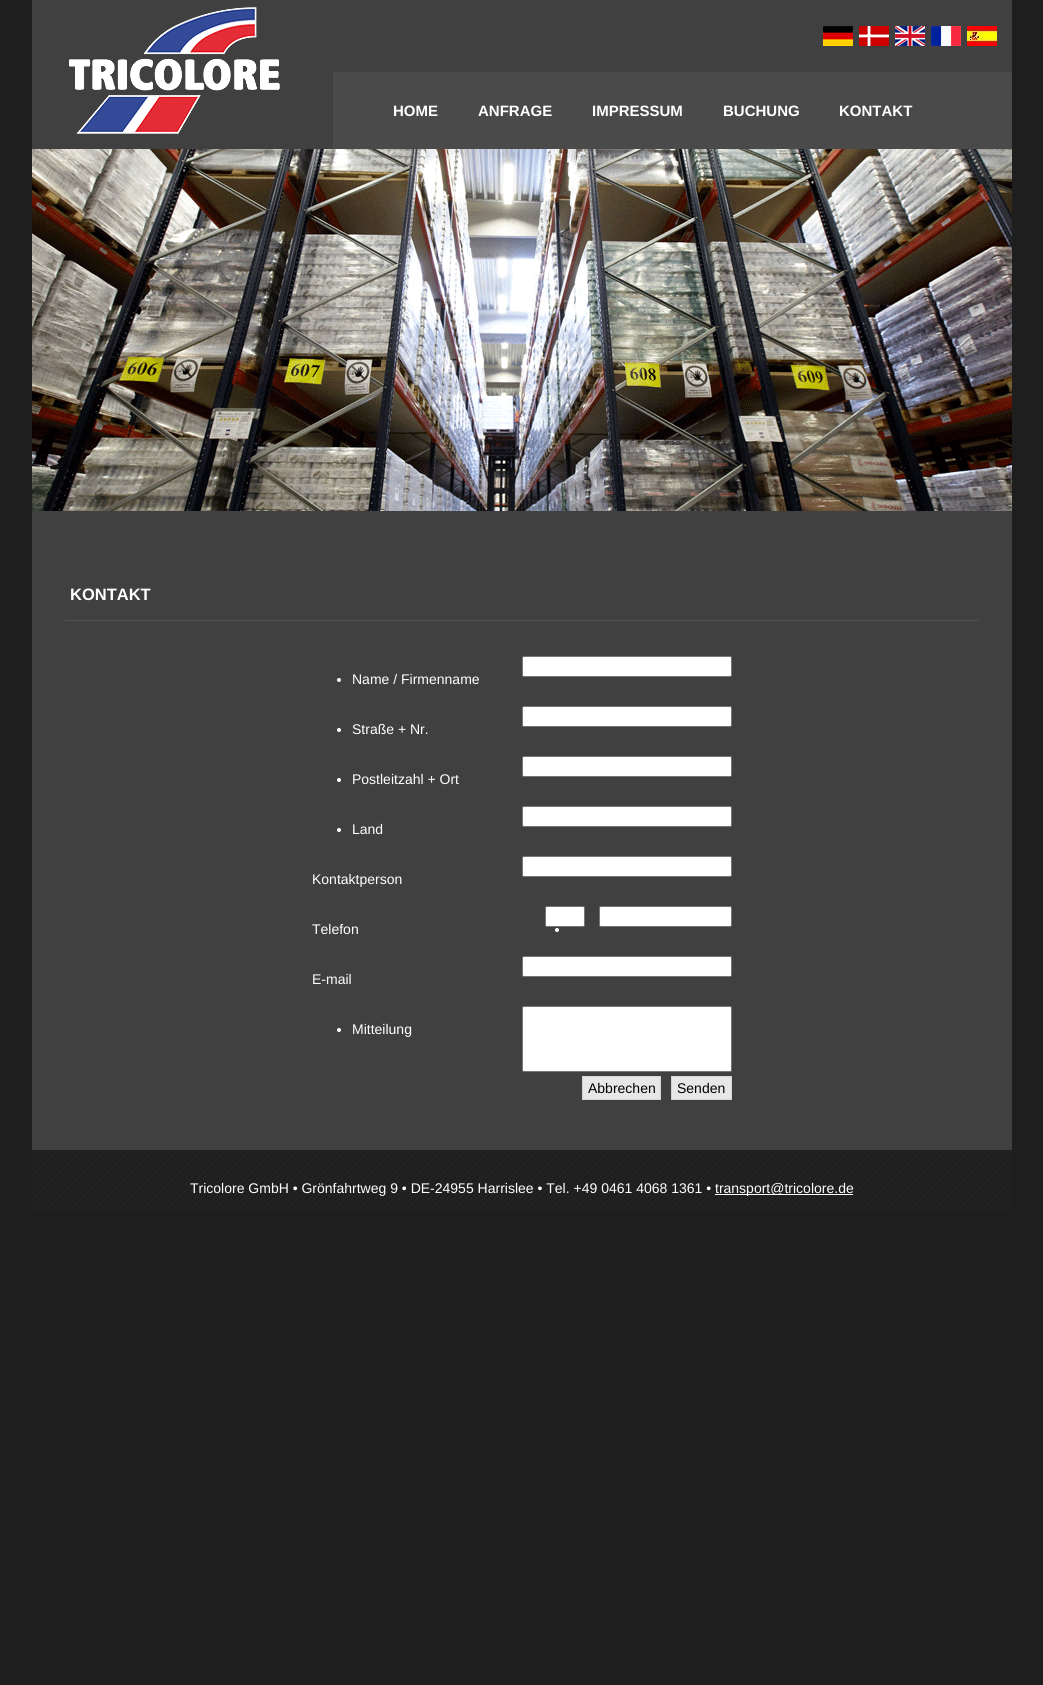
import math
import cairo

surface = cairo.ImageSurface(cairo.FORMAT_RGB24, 1043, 1685)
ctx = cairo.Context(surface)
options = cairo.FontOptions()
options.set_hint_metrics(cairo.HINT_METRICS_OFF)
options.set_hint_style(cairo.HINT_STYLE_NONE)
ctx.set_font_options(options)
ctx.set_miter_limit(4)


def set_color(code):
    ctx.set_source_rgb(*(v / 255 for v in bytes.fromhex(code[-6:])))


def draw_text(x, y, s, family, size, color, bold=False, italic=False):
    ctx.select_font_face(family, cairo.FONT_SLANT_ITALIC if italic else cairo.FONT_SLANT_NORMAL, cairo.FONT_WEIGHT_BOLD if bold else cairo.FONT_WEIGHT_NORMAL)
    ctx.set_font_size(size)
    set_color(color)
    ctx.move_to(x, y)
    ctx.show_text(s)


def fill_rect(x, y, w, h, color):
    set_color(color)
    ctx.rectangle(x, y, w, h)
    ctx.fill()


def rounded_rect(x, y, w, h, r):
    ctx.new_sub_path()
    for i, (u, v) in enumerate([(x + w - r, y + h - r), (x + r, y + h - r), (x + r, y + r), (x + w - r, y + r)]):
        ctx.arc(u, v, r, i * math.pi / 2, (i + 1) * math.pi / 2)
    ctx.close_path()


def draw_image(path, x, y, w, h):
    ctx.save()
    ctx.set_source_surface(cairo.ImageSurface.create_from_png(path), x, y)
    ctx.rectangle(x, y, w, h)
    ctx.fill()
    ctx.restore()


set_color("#1e1e1e")
ctx.paint()
fill_rect(32, 0, 980, 1150, "#414040")
draw_image("assets/img1.png", 69, 7, 211, 127)
draw_image("assets/img2.png", 823, 26, 30, 20)
draw_image("assets/img3.png", 859, 26, 30, 20)
draw_image("assets/img4.png", 895, 26, 30, 20)
draw_image("assets/img5.png", 931, 26, 30, 20)
draw_image("assets/img6.png", 967, 26, 30, 20)
fill_rect(333, 72, 679, 77, "#4a4a4a")
draw_text(393, 116, "HOME", "Liberation Sans", 15, "#ffffff", bold=True)
draw_text(478, 116, "ANFRAGE", "Liberation Sans", 15, "#ffffff", bold=True)
draw_text(592, 116, "IMPRESSUM", "Liberation Sans", 15, "#ffffff", bold=True)
draw_text(723, 116, "BUCHUNG", "Liberation Sans", 15, "#ffffff", bold=True)
draw_text(839, 116, "KONTAKT", "Liberation Sans", 15, "#ffffff", bold=True)
draw_image("assets/img7.png", 32, 149, 980, 362)
draw_text(70, 600, "KONTAKT", "Liberation Sans", 16.5, "#ffffff", bold=True)
fill_rect(65, 620, 914, 1, "#545353")
set_color("#ffffff")
rounded_rect(522.5, 656.5, 209, 20, 1.5)
ctx.fill_preserve()
set_color("#767676")
ctx.set_line_width(1)
ctx.stroke()
set_color("#ffffff")
ctx.arc(339, 680, 2, 0, 2 * math.pi)
ctx.fill()
draw_text(352, 684, "Name / Firmenname", "Liberation Sans", 14, "#ffffff")
rounded_rect(522.5, 706.5, 209, 20, 1.5)
ctx.fill_preserve()
set_color("#767676")
ctx.stroke()
set_color("#ffffff")
ctx.arc(339, 730, 2, 0, 2 * math.pi)
ctx.fill()
draw_text(352, 734, "Straße + Nr.", "Liberation Sans", 14, "#ffffff")
rounded_rect(522.5, 756.5, 209, 20, 1.5)
ctx.fill_preserve()
set_color("#767676")
ctx.stroke()
set_color("#ffffff")
ctx.arc(339, 780, 2, 0, 2 * math.pi)
ctx.fill()
draw_text(352, 784, "Postleitzahl + Ort", "Liberation Sans", 14, "#ffffff")
rounded_rect(522.5, 806.5, 209, 20, 1.5)
ctx.fill_preserve()
set_color("#767676")
ctx.stroke()
set_color("#ffffff")
ctx.arc(339, 830, 2, 0, 2 * math.pi)
ctx.fill()
draw_text(352, 834, "Land", "Liberation Sans", 14, "#ffffff")
rounded_rect(522.5, 856.5, 209, 20, 1.5)
ctx.fill_preserve()
set_color("#767676")
ctx.stroke()
draw_text(312, 884, "Kontaktperson", "Liberation Sans", 14, "#ffffff")
rounded_rect(545.5, 906.5, 39, 20, 1.5)
ctx.fill_preserve()
set_color("#767676")
ctx.stroke()
set_color("#ffffff")
ctx.arc(557, 930, 2, 0, 2 * math.pi)
ctx.fill()
rounded_rect(599.5, 906.5, 132, 20, 1.5)
ctx.fill_preserve()
set_color("#767676")
ctx.stroke()
draw_text(312, 934, "Telefon", "Liberation Sans", 14, "#ffffff")
rounded_rect(522.5, 956.5, 209, 20, 1.5)
ctx.fill_preserve()
set_color("#767676")
ctx.stroke()
draw_text(312, 984, "E-mail", "Liberation Sans", 14, "#ffffff")
ctx.new_path()
ctx.arc(339, 1030, 2, 0, 2 * math.pi)
ctx.fill()
draw_text(352, 1034, "Mitteilung", "Liberation Sans", 14, "#ffffff")
rounded_rect(522.5, 1006.5, 209, 65, 1.5)
ctx.fill_preserve()
set_color("#767676")
ctx.stroke()
set_color("#e7e7e7")
ctx.rectangle(582.5, 1076.5, 78, 23)
ctx.fill_preserve()
set_color("#d5d5d5")
ctx.stroke()
draw_text(588, 1093, "Abbrechen", "Liberation Sans", 14, "#000000")
set_color("#e7e7e7")
ctx.rectangle(671.5, 1076.5, 60, 23)
ctx.fill_preserve()
set_color("#d5d5d5")
ctx.stroke()
draw_text(677, 1093, "Senden", "Liberation Sans", 14, "#000000")
draw_image("assets/img8.png", 32, 1150, 980, 61)
draw_text(190, 1193, "Tricolore GmbH • Grönfahrtweg 9 • DE-24955 Harrislee • Tel. +49 0461 4068 1361 •", "Liberation Sans", 14, "#ffffff")
fill_rect(715, 1194, 138, 1, "#ffffff")
draw_text(715, 1193, "transport@tricolore.de", "Liberation Sans", 14, "#ffffff")
surface.write_to_png("output.png")
